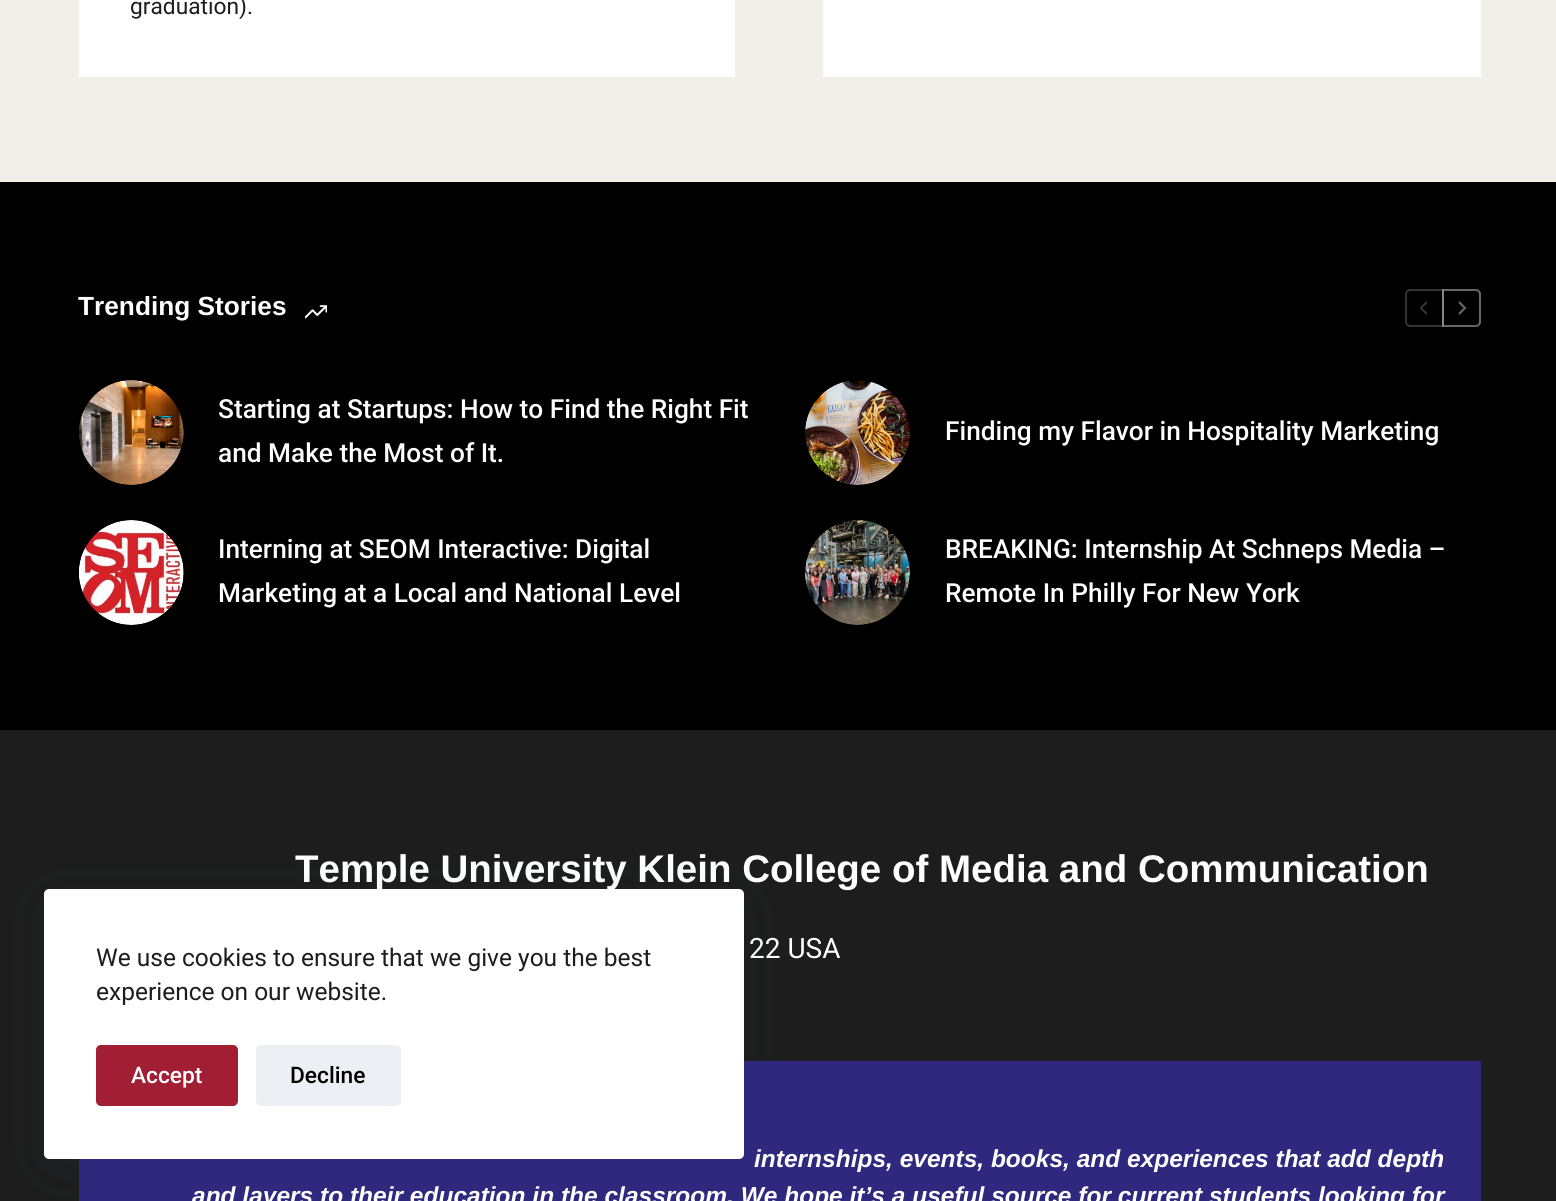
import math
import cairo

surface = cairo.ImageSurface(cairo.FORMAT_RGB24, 1556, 1201)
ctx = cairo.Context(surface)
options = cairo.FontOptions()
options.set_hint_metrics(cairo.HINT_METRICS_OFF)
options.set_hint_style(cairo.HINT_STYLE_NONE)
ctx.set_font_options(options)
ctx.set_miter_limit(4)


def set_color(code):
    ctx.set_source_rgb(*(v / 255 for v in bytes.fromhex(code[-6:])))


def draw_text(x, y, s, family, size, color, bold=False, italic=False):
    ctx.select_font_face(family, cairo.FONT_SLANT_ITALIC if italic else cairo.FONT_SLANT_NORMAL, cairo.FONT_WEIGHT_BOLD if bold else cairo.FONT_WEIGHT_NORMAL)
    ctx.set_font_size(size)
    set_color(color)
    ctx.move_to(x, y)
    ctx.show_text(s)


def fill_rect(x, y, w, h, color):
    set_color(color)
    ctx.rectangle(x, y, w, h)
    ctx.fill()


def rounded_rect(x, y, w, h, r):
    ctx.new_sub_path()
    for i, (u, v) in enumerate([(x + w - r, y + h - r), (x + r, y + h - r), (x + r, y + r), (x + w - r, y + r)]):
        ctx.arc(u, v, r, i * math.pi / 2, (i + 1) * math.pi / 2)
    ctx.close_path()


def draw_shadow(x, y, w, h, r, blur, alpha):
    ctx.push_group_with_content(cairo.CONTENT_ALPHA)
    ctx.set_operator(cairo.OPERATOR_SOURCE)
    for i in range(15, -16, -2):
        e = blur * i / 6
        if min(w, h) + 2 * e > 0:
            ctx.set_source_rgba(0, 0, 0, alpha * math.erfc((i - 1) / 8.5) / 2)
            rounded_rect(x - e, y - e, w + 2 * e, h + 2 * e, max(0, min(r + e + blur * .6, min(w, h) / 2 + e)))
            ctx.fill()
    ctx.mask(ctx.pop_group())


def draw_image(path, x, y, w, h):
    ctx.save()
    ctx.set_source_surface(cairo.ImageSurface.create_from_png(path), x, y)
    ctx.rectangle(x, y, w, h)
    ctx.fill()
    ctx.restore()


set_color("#f2eee8")
ctx.paint()
fill_rect(79, 0, 656, 77, "#ffffff")
draw_text(130, 14, "graduation).", "Roboto", 22.75, "#1d1d1d")
fill_rect(823, 0, 658, 77, "#ffffff")
fill_rect(0, 182, 1556, 548, "#000000")
draw_text(78, 315, "Trending Stories", "Liberation Sans", 26.25, "#ffffff", bold=True)
draw_image("assets/img1.png", 305, 305, 22, 14)
ctx.new_path()
ctx.move_to(1410, 290)
ctx.line_to(1443, 290)
ctx.line_to(1443, 326)
ctx.line_to(1410, 326)
ctx.curve_to(1408, 326, 1406, 324, 1406, 322)
ctx.line_to(1406, 294)
ctx.curve_to(1406, 292, 1408, 290, 1410, 290)
ctx.close_path()
set_color("#333333")
ctx.stroke()
draw_image("assets/img2.png", 1419, 301, 9, 14)
ctx.new_path()
ctx.move_to(1443, 290)
ctx.line_to(1476, 290)
ctx.curve_to(1478, 290, 1480, 292, 1480, 294)
ctx.line_to(1480, 322)
ctx.curve_to(1480, 324, 1478, 326, 1476, 326)
ctx.line_to(1443, 326)
ctx.close_path()
ctx.set_source_rgba(1, 1, 1, 0.4)
ctx.stroke()
draw_image("assets/img3.png", 1458, 301, 9, 14)
draw_image("assets/img4.png", 79, 380, 105, 105)
draw_text(218, 418, "Starting at Startups: How to Find the Right Fit", "Roboto Medium", 26.25, "#ffffff")
draw_text(218, 462, "and Make the Most of It.", "Roboto Medium", 26.25, "#ffffff")
draw_image("assets/img5.png", 805, 380, 105, 105)
draw_text(945, 440, "Finding my Flavor in Hospitality Marketing", "Roboto Medium", 26.25, "#ffffff")
draw_image("assets/img6.png", 79, 520, 105, 105)
draw_text(218, 558, "Interning at SEOM Interactive: Digital", "Roboto Medium", 26.25, "#ffffff")
draw_text(218, 602, "Marketing at a Local and National Level", "Roboto Medium", 26.25, "#ffffff")
draw_image("assets/img7.png", 805, 520, 105, 105)
draw_text(945, 558, "BREAKING: Internship At Schneps Media –", "Roboto Medium", 26.25, "#ffffff")
draw_text(945, 602, "Remote In Philly For New York", "Roboto Medium", 26.25, "#ffffff")
fill_rect(0, 730, 1556, 471, "#1d1d1d")
draw_text(295, 882, "Temple University Klein College of Media and Communication", "Liberation Sans", 38.5, "#ffffff", bold=True)
draw_text(749, 958, "22 USA", "Roboto", 28, "#ffffff")
fill_rect(79, 1061, 1402, 140, "#2f287e")
draw_text(754, 1167, "internships, events, books, and experiences that add depth", "Liberation Sans", 24.5, "#ffffff", bold=True, italic=True)
draw_text(192, 1204, "and layers to their education in the classroom. We hope it’s a useful source for current students looking for", "Liberation Sans", 24.5, "#ffffff", bold=True, italic=True)
set_color("#223865")
draw_shadow(53, 907, 682, 252, 0, 26, 0.15)
set_color("#ffffff")
rounded_rect(44, 889, 700, 270, 5)
ctx.fill()
draw_text(96, 966, "We use cookies to ensure that we give you the best", "Roboto", 24.5, "#1d1d1d")
draw_text(96, 1000, "experience on our website.", "Roboto", 24.5, "#1d1d1d")
set_color("#a11e34")
rounded_rect(96, 1045, 142, 61, 5)
ctx.fill()
draw_text(131, 1083, "Accept", "Roboto Medium", 22.75, "#ffffff")
set_color("#eceff3")
rounded_rect(256, 1045, 145, 61, 5)
ctx.fill()
draw_text(290, 1083, "Decline", "Roboto Medium", 22.75, "#000000")
surface.write_to_png("output.png")
